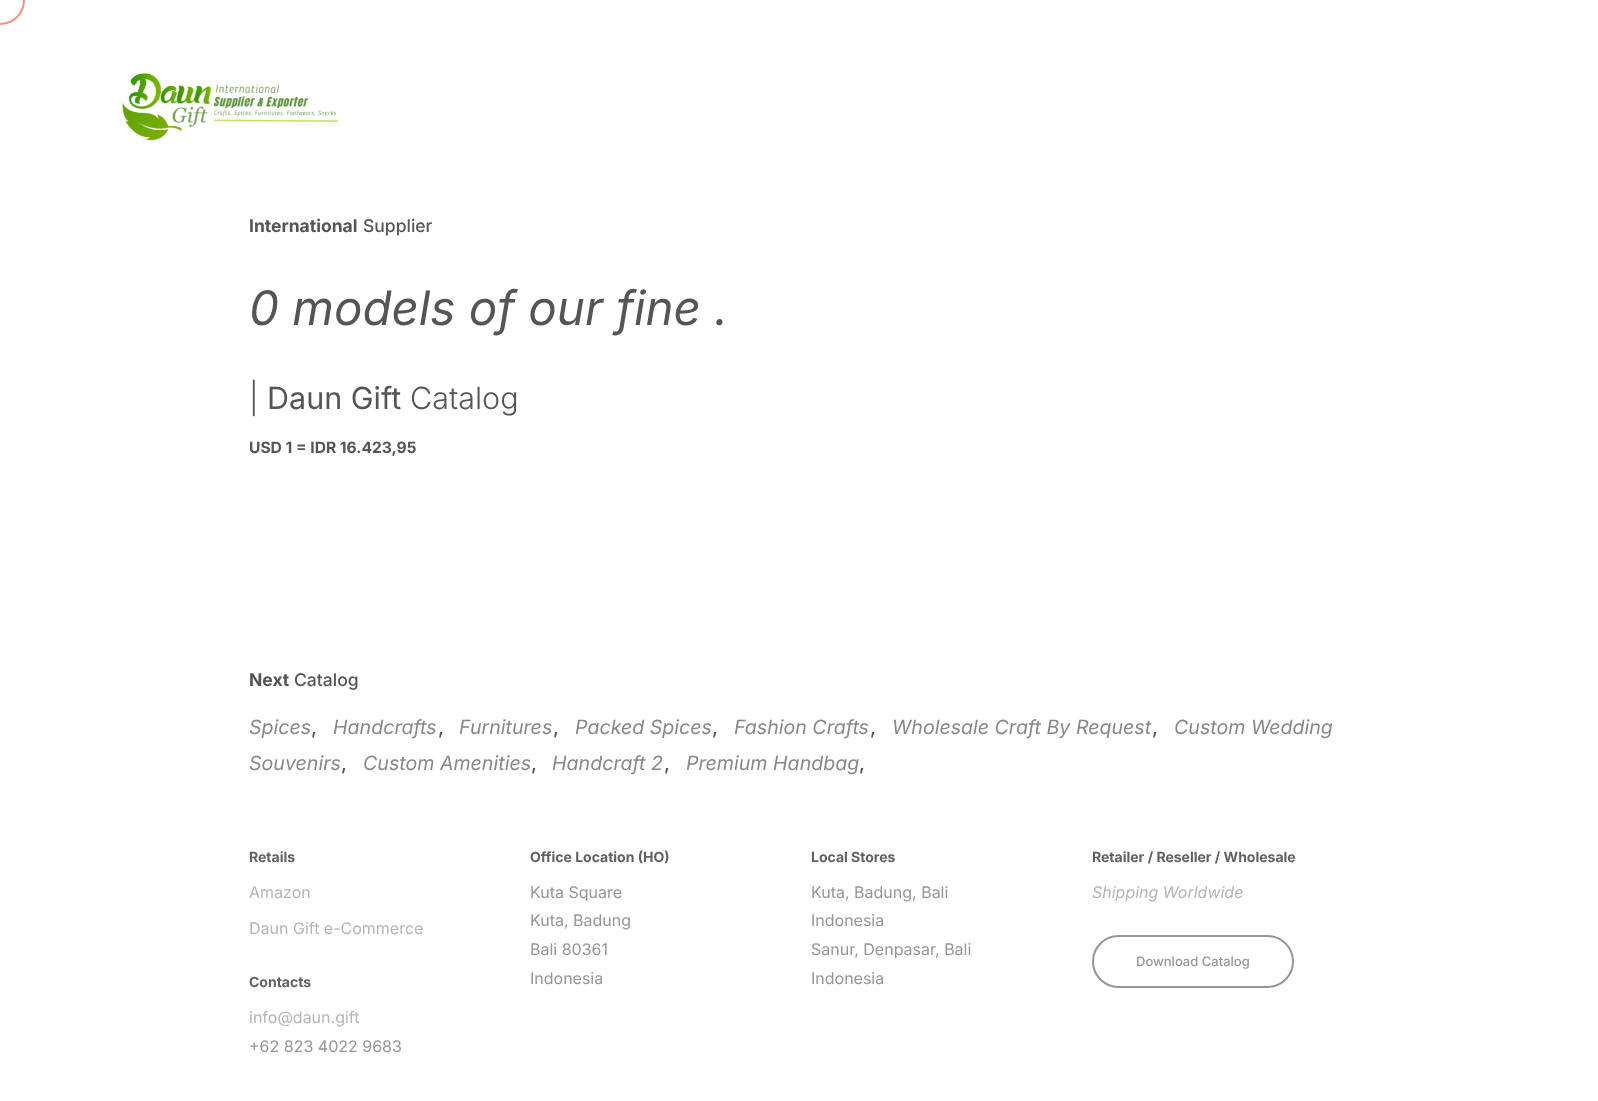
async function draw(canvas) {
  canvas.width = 1598;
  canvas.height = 1101;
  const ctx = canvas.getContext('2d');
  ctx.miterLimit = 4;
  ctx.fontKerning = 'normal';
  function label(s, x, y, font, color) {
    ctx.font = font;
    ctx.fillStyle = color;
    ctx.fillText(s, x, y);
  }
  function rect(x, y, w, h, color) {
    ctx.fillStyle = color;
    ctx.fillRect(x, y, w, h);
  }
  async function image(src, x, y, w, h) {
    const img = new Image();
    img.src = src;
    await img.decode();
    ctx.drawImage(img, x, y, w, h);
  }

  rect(0, 0, 1598, 1101, '#fff');
  ctx.beginPath();
  ctx.arc(0, 0, 24, 0, 2 * Math.PI);
  ctx.strokeStyle = '#f49183';
  ctx.lineWidth = 2;
  ctx.stroke();
  await image('assets/img1.png', 122, 73, 216, 68);
  label('International', 249, 232, 'bold 17.5px Inter', '#555');
  label('Supplier', 363, 232, '500 17.5px Inter', '#555');
  label('0 models of our fine .', 249, 325, 'italic 47.5px Inter', '#555');
  label('|', 249, 409, '300 30.5px Inter', '#555');
  label('Daun Gift', 267, 409, '30.5px Inter', '#555');
  label('Catalog', 410, 409, '300 30.5px Inter', '#555');
  label('USD 1 = IDR 16.423,95', 249, 453, 'bold 15.6px Inter', '#555');
  label('Next', 249, 686, 'bold 17.5px Inter', '#555');
  label('Catalog', 294, 686, '500 17.5px Inter', '#555');
  label('Spices', 249, 734, 'italic 19.6px Inter', '#888');
  label(',', 311, 734, '500 19.6px Inter', '#555');
  label('Handcrafts', 333, 734, 'italic 19.6px Inter', '#888');
  label(',', 438, 734, '500 19.6px Inter', '#555');
  label('Furnitures', 459, 734, 'italic 19.6px Inter', '#888');
  label(',', 553, 734, '500 19.6px Inter', '#555');
  label('Packed Spices', 575, 734, 'italic 19.6px Inter', '#888');
  label(',', 712, 734, '500 19.6px Inter', '#555');
  label('Fashion Crafts', 734, 734, 'italic 19.6px Inter', '#888');
  label(',', 870, 734, '500 19.6px Inter', '#555');
  label('Wholesale Craft By Request', 892, 734, 'italic 19.6px Inter', '#888');
  label(',', 1152, 734, '500 19.6px Inter', '#555');
  label('Custom Wedding', 1174, 734, 'italic 19.6px Inter', '#888');
  label('Souvenirs', 249, 770, 'italic 19.6px Inter', '#888');
  label(',', 341, 770, '500 19.6px Inter', '#555');
  label('Custom Amenities', 363, 770, 'italic 19.6px Inter', '#888');
  label(',', 531, 770, '500 19.6px Inter', '#555');
  label('Handcraft 2', 552, 770, 'italic 19.6px Inter', '#888');
  label(',', 664, 770, '500 19.6px Inter', '#555');
  label('Premium Handbag', 686, 770, 'italic 19.6px Inter', '#888');
  label(',', 859, 770, '500 19.6px Inter', '#555');
  label('Retails', 249, 862, 'bold 14px Inter', '#616161');
  label('Amazon', 249, 898, '16px Inter', '#b5b5b5');
  label('Daun Gift e-Commerce', 249, 934, '16px Inter', '#b5b5b5');
  label('Contacts', 249, 987, 'bold 14px Inter', '#616161');
  label('info@daun.gift', 249, 1023, '16px Inter', '#b5b5b5');
  label('+62 823 4022 9683', 249, 1052, '16px Inter', '#969696');
  label('Office Location (HO)', 530, 862, 'bold 14px Inter', '#616161');
  label('Kuta Square', 530, 898, '16px Inter', '#969696');
  label('Kuta, Badung', 530, 926, '16px Inter', '#969696');
  label('Bali 80361', 530, 955, '16px Inter', '#969696');
  label('Indonesia', 530, 984, '16px Inter', '#969696');
  label('Local Stores', 811, 862, 'bold 14px Inter', '#616161');
  label('Kuta, Badung, Bali', 811, 898, '16px Inter', '#969696');
  label('Indonesia', 811, 926, '16px Inter', '#969696');
  label('Sanur, Denpasar, Bali', 811, 955, '16px Inter', '#969696');
  label('Indonesia', 811, 984, '16px Inter', '#969696');
  label('Retailer / Reseller / Wholesale', 1092, 862, 'bold 14px Inter', '#616161');
  label('Shipping Worldwide', 1092, 898, 'italic 16px Inter', '#b5b5b5');
  ctx.beginPath();
  ctx.roundRect(1093, 936, 200, 51, 25.5);
  ctx.strokeStyle = '#969696';
  ctx.stroke();
  label('Download Catalog', 1136, 966, '500 13px Inter', '#969696');
}

draw(document.querySelector('canvas'));
